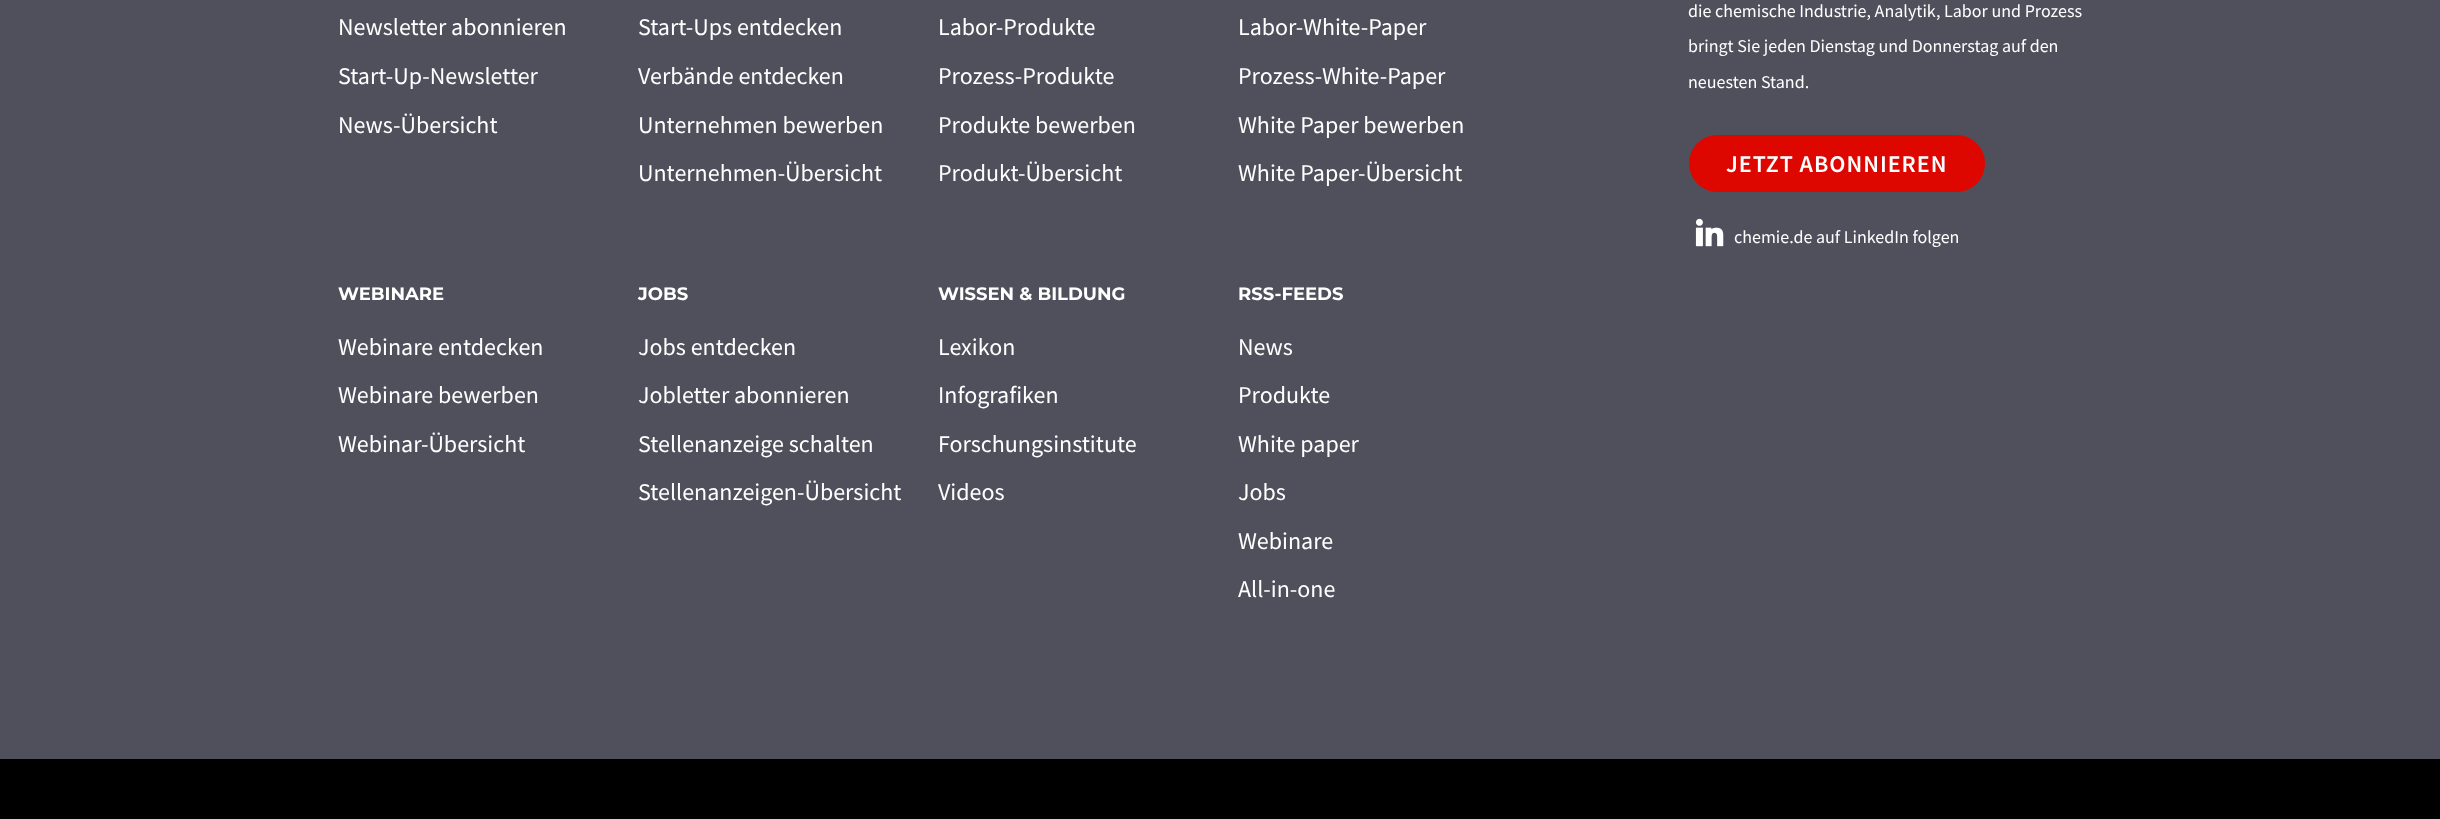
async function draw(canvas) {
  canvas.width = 2440;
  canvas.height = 819;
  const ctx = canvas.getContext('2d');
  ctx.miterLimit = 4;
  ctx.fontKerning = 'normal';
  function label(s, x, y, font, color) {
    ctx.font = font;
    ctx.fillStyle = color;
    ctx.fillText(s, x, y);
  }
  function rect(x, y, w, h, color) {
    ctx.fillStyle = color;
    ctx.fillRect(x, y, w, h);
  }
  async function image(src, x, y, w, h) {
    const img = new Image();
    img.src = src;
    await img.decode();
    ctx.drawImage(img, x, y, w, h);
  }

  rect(0, 0, 2440, 819, '#50505d');
  label('Newsletter abonnieren', 338, 35, '24px Source Sans Pro', '#fff');
  label('Start-Up-Newsletter', 338, 84, '24px Source Sans Pro', '#fff');
  label('News-Übersicht', 338, 133, '24px Source Sans Pro', '#fff');
  label('Start-Ups entdecken', 638, 35, '24px Source Sans Pro', '#fff');
  label('Verbände entdecken', 638, 84, '24px Source Sans Pro', '#fff');
  label('Unternehmen bewerben', 638, 133, '24px Source Sans Pro', '#fff');
  label('Unternehmen-Übersicht', 638, 181, '24px Source Sans Pro', '#fff');
  label('Labor-Produkte', 938, 35, '24px Source Sans Pro', '#fff');
  label('Prozess-Produkte', 938, 84, '24px Source Sans Pro', '#fff');
  label('Produkte bewerben', 938, 133, '24px Source Sans Pro', '#fff');
  label('Produkt-Übersicht', 938, 181, '24px Source Sans Pro', '#fff');
  label('Labor-White-Paper', 1238, 35, '24px Source Sans Pro', '#fff');
  label('Prozess-White-Paper', 1238, 84, '24px Source Sans Pro', '#fff');
  label('White Paper bewerben', 1238, 133, '24px Source Sans Pro', '#fff');
  label('White Paper-Übersicht', 1238, 181, '24px Source Sans Pro', '#fff');
  label('WEBINARE', 338, 300, '100 18px Montserrat', '#fff');
  label('Webinare entdecken', 338, 355, '24px Source Sans Pro', '#fff');
  label('Webinare bewerben', 338, 403, '24px Source Sans Pro', '#fff');
  label('Webinar-Übersicht', 338, 452, '24px Source Sans Pro', '#fff');
  label('JOBS', 638, 300, '100 18px Montserrat', '#fff');
  label('Jobs entdecken', 638, 355, '24px Source Sans Pro', '#fff');
  label('Jobletter abonnieren', 638, 403, '24px Source Sans Pro', '#fff');
  label('Stellenanzeige schalten', 638, 452, '24px Source Sans Pro', '#fff');
  label('Stellenanzeigen-Übersicht', 638, 500, '24px Source Sans Pro', '#fff');
  label('WISSEN & BILDUNG', 938, 300, '100 18px Montserrat', '#fff');
  label('Lexikon', 938, 355, '24px Source Sans Pro', '#fff');
  label('Infografiken', 938, 403, '24px Source Sans Pro', '#fff');
  label('Forschungsinstitute', 938, 452, '24px Source Sans Pro', '#fff');
  label('Videos', 938, 500, '24px Source Sans Pro', '#fff');
  label('RSS-FEEDS', 1238, 300, '100 18px Montserrat', '#fff');
  label('News', 1238, 355, '24px Source Sans Pro', '#fff');
  label('Produkte', 1238, 403, '24px Source Sans Pro', '#fff');
  label('White paper', 1238, 452, '24px Source Sans Pro', '#fff');
  label('Jobs', 1238, 500, '24px Source Sans Pro', '#fff');
  label('Webinare', 1238, 549, '24px Source Sans Pro', '#fff');
  label('All-in-one', 1238, 597, '24px Source Sans Pro', '#fff');
  label('die chemische Industrie, Analytik, Labor und Prozess', 1688, 17, '18px Source Sans Pro', '#fff');
  label('bringt Sie jeden Dienstag und Donnerstag auf den', 1688, 52, '18px Source Sans Pro', '#fff');
  label('neuesten Stand.', 1688, 88, '18px Source Sans Pro', '#fff');
  ctx.fillStyle = '#dd0700';
  ctx.beginPath();
  ctx.roundRect(1690, 136, 294, 55, 27.5);
  ctx.fill();
  ctx.strokeStyle = '#dd0700';
  ctx.lineWidth = 2;
  ctx.stroke();
  ctx.letterSpacing = '1px';
  label('JETZT ABONNIEREN', 1726, 172, '600 24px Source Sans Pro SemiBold', '#fff');
  await image('assets/img1.png', 1695, 218, 29, 29);
  ctx.letterSpacing = '0px';
  label('chemie.de auf LinkedIn folgen', 1734, 243, '18px Source Sans Pro', '#fff');
  rect(0, 759, 2440, 60, '#000');
}

draw(document.querySelector('canvas'));
